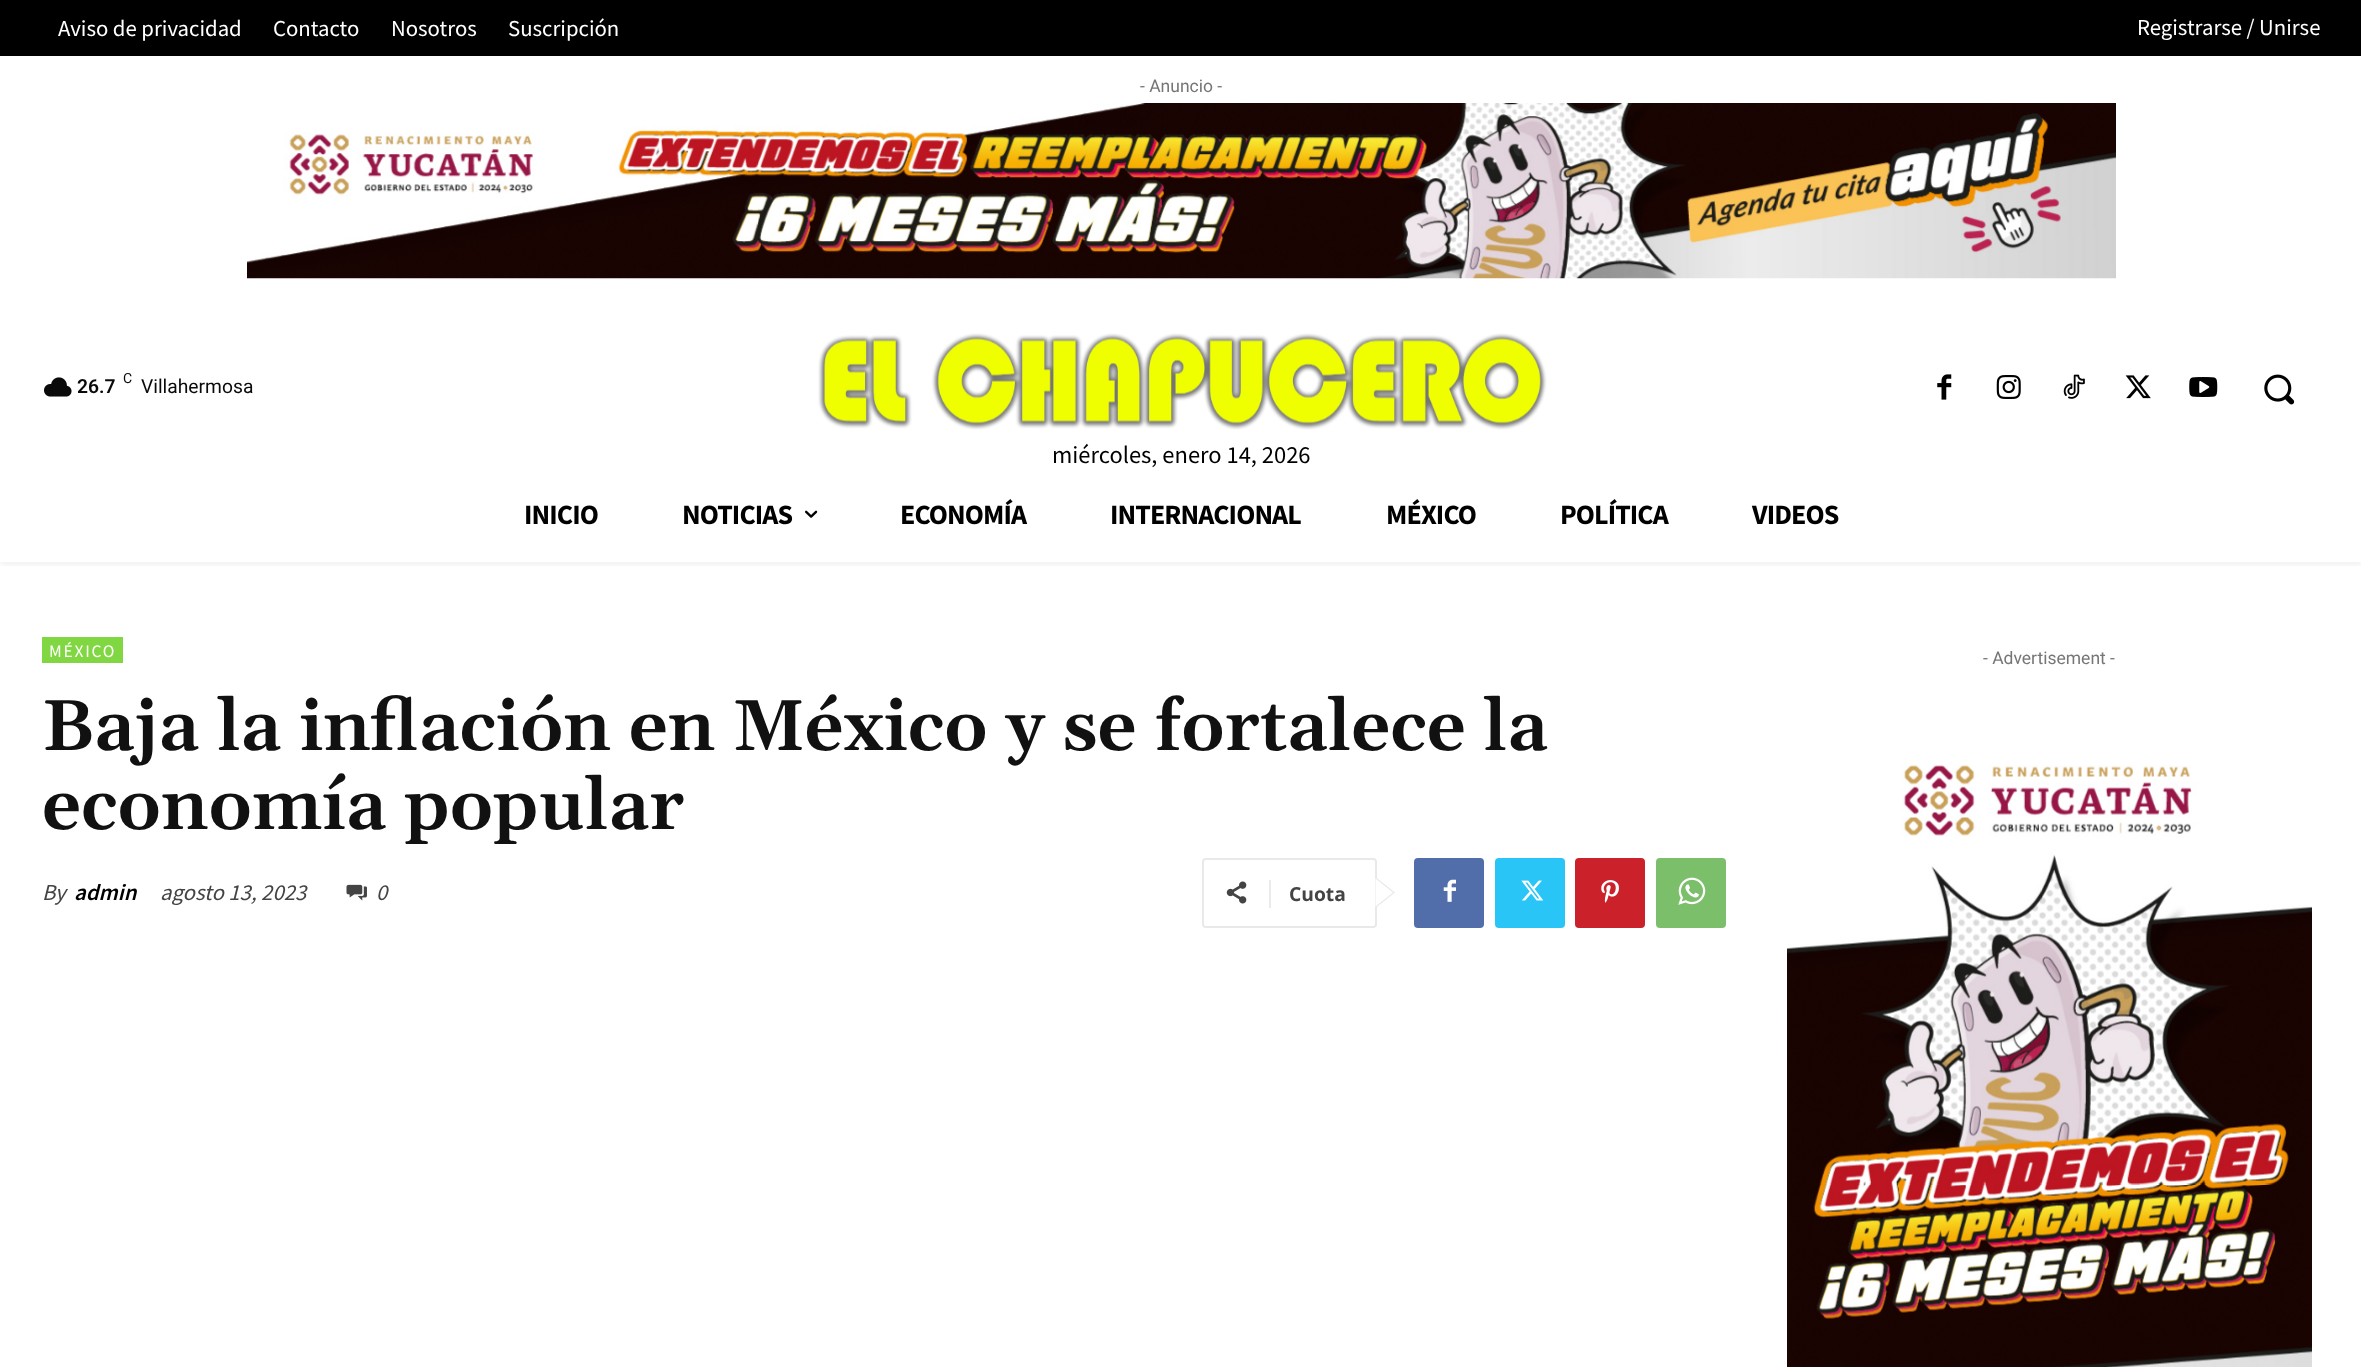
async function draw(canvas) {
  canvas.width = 2361;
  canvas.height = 1367;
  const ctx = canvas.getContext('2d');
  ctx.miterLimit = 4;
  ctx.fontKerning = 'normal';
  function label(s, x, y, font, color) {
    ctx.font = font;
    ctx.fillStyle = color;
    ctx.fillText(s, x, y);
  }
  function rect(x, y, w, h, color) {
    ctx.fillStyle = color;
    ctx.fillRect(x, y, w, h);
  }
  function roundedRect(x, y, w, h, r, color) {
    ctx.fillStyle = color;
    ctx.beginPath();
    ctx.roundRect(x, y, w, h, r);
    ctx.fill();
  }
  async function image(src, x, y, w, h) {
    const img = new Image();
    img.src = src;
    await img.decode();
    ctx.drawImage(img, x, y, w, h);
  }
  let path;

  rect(0, 0, 2361, 1367, '#fff');
  rect(0, 0, 2361, 56, '#000');
  label('Aviso de privacidad', 58, 36, '22.75px Source Sans Pro', '#fff');
  label('Contacto', 273, 36, '22.75px Source Sans Pro', '#fff');
  label('Nosotros', 391, 36, '22.75px Source Sans Pro', '#fff');
  label('Suscripción', 508, 36, '22.75px Source Sans Pro', '#fff');
  label('Registrarse / Unirse', 2137, 35, '22.75px Source Sans Pro', '#fff');
  label('- Anuncio -', 1140, 92, '17.5px Roboto', '#767676');
  await image('assets/img1.png', 247, 103, 1869, 176);
  await image('assets/img2.png', 44, 377, 28, 20);
  label('26.7', 77, 393, '600 19.25px Roboto', '#0a0a0a');
  label('C', 123, 383, '14px Roboto', '#0a0a0a');
  label('Villahermosa', 141, 393, '19.25px Roboto', '#0a0a0a');
  await image('assets/img3.png', 818, 333, 729, 97);
  await image('assets/img4.png', 1937, 374, 15, 26);
  await image('assets/img5.png', 1996, 375, 25, 24);
  await image('assets/img6.png', 2063, 374, 22, 25);
  await image('assets/img7.png', 2125, 375, 26, 24);
  await image('assets/img8.png', 2189, 377, 29, 20);
  await image('assets/img9.png', 2264, 374, 31, 31);
  label('miércoles, enero 14, 2026', 1052, 463, '24.5px Source Sans Pro', '#000');
  ctx.save();
  ctx.beginPath();
  ctx.rect(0, 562, 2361, 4);
  ctx.clip();
  ctx.fillStyle = '#0000000f';
  ctx.filter = 'blur(3.5px)';
  ctx.beginPath();
  ctx.rect(0, 469, 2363, 96);
  ctx.fill();
  ctx.filter = 'none';
  ctx.restore();
  ctx.letterSpacing = '-0.9px';
  label('INICIO', 524, 524, 'bold 28px Source Sans Pro', '#000');
  label('NOTICIAS', 682, 524, 'bold 28px Source Sans Pro', '#000');
  await image('assets/img10.png', 805, 510, 13, 8);
  label('ECONOMÍA', 900, 524, 'bold 28px Source Sans Pro', '#000');
  label('INTERNACIONAL', 1110, 524, 'bold 28px Source Sans Pro', '#000');
  label('MÉXICO', 1386, 524, 'bold 28px Source Sans Pro', '#000');
  label('POLÍTICA', 1560, 524, 'bold 28px Source Sans Pro', '#000');
  label('VIDEOS', 1752, 524, 'bold 28px Source Sans Pro', '#000');
  rect(42, 637, 81, 26, '#81d742');
  ctx.letterSpacing = '1.75px';
  label('MÉXICO', 49, 657, '17.5px Source Sans Pro', '#fff');
  ctx.letterSpacing = '0px';
  label('Baja la inflación en México y se fortalece la', 42, 750, '600 71.75px Gelasio', '#111');
  label('economía popular', 42, 829, '600 71.75px Gelasio', '#111');
  label('By', 42, 900, 'italic 22.75px Source Sans Pro', '#444');
  label('admin', 74, 900, 'italic 600 22.75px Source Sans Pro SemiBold', '#000');
  label('agosto 13, 2023', 160, 900, 'italic 22.75px Source Sans Pro', '#444');
  await image('assets/img11.png', 346, 884, 21, 17);
  label('0', 376, 900, 'italic 22.75px Source Sans Pro', '#444');
  ctx.beginPath();
  ctx.roundRect(1203, 859, 173, 68, 3);
  ctx.strokeStyle = '#e9e9e9';
  ctx.lineWidth = 2;
  ctx.stroke();
  ctx.fillStyle = '#e9e9e9';
  path = new Path2D('M1375.5 908V877L1395 892.5Z');
  ctx.fill(path);
  await image('assets/img12.png', 1226, 881, 21, 23);
  rect(1269, 880, 2, 28, '#ebebeb');
  label('Cuota', 1289, 901, 'bold 19.25px Open Sans', '#444');
  ctx.fillStyle = '#fff';
  path = new Path2D('M1375.5 906.5V878.5L1393 892.5Z');
  ctx.fill(path);
  roundedRect(1414, 858, 70, 70, 4, '#516eab');
  await image('assets/img13.png', 1443, 879, 13, 23);
  roundedRect(1495, 858, 70, 70, 4, '#29c5f6');
  await image('assets/img14.png', 1521, 880, 23, 21);
  roundedRect(1575, 858, 70, 70, 4, '#ca212a');
  await image('assets/img15.png', 1601, 880, 18, 23);
  roundedRect(1656, 858, 70, 70, 4, '#7bbf6a');
  await image('assets/img16.png', 1678, 877, 28, 28);
  label('- Advertisement -', 1983, 664, '17.5px Roboto', '#767676');
  await image('assets/img17.png', 1787, 765, 525, 602);
}

draw(document.querySelector('canvas'));
